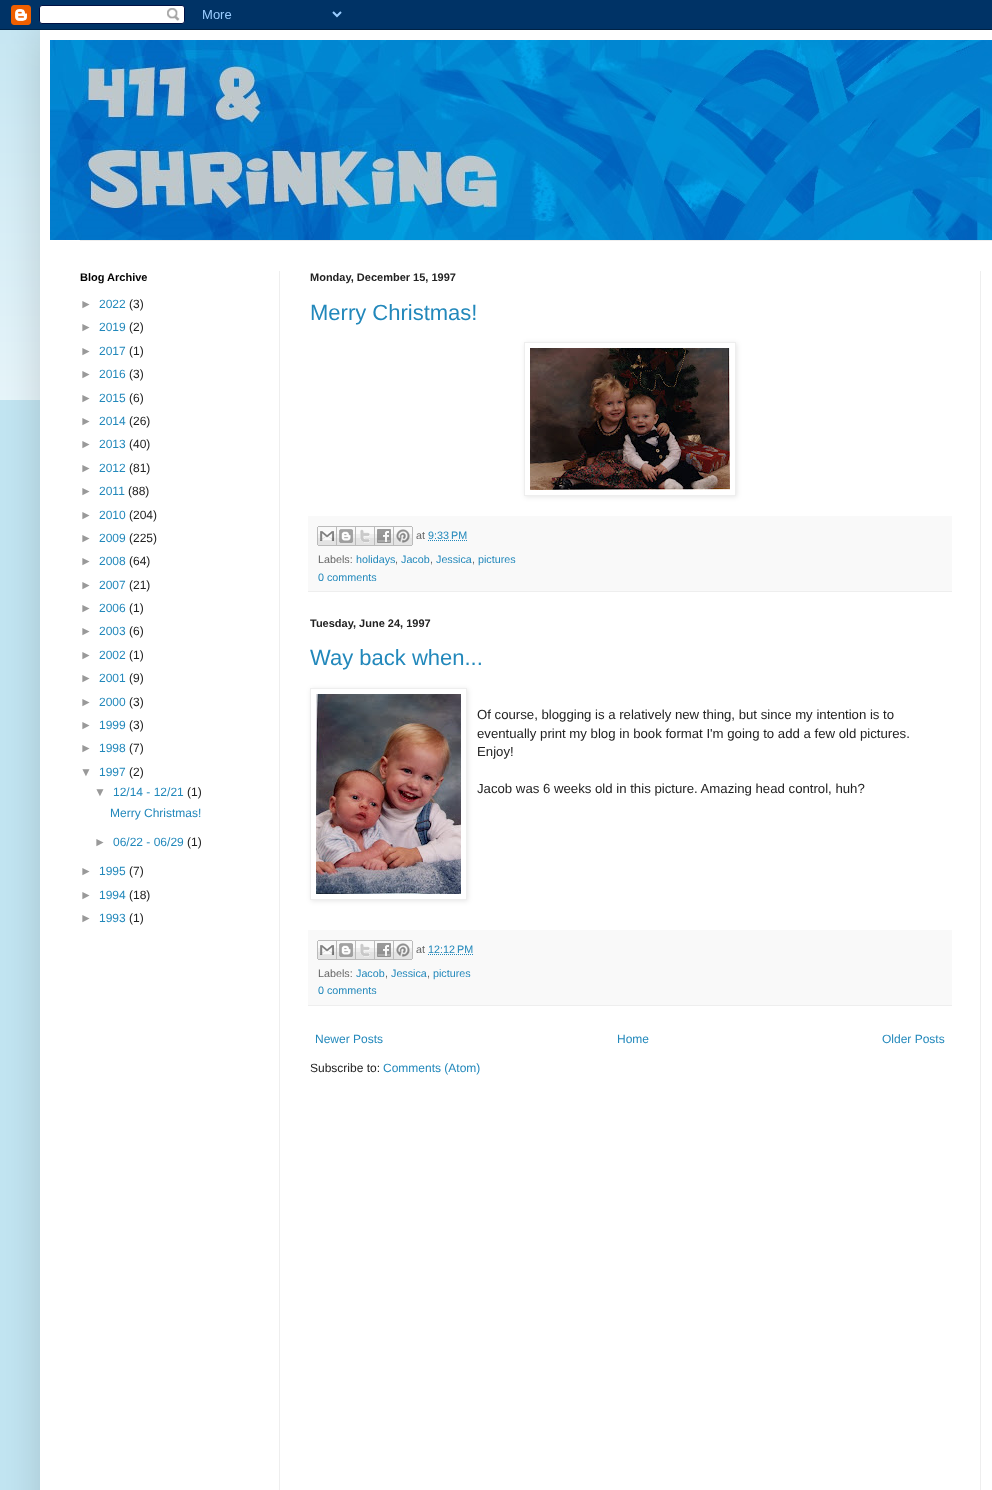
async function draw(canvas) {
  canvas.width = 992;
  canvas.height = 1490;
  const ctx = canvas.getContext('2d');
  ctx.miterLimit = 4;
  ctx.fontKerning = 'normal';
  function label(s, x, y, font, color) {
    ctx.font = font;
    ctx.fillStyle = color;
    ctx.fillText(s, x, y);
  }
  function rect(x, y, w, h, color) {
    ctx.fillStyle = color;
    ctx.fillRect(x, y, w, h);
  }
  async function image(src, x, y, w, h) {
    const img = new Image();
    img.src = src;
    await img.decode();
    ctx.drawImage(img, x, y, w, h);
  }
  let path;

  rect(0, 0, 992, 1490, '#c2e5f2');
  await image('assets/img2.png', 0, 30, 40, 370);
  ctx.fillStyle = '#00000026';
  ctx.filter = 'blur(20px)';
  ctx.beginPath();
  ctx.rect(40, 30, 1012, 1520);
  ctx.fill();
  ctx.filter = 'none';
  await image('assets/img1.png', 0, 0, 992, 30);
  rect(40, 30, 952, 1460, '#fff');
  await image('assets/img3.png', 50, 40, 942, 200);
  rect(80, 240, 912, 1, '#eee');
  rect(279, 271, 1, 1219, '#eee');
  rect(980, 271, 1, 1219, '#eee');
  label('Blog Archive', 80, 281, 'bold 11px Liberation Sans', '#000');
  label('►', 80, 308, '12px Liberation Sans', '#999');
  label('2022', 99, 308, '12px Liberation Sans', '#28b');
  label('(3)', 129, 308, '12px Liberation Sans', '#222');
  label('►', 80, 331, '12px Liberation Sans', '#999');
  label('2019', 99, 331, '12px Liberation Sans', '#28b');
  label('(2)', 129, 331, '12px Liberation Sans', '#222');
  label('►', 80, 355, '12px Liberation Sans', '#999');
  label('2017', 99, 355, '12px Liberation Sans', '#28b');
  label('(1)', 129, 355, '12px Liberation Sans', '#222');
  label('►', 80, 378, '12px Liberation Sans', '#999');
  label('2016', 99, 378, '12px Liberation Sans', '#28b');
  label('(3)', 129, 378, '12px Liberation Sans', '#222');
  label('►', 80, 402, '12px Liberation Sans', '#999');
  label('2015', 99, 402, '12px Liberation Sans', '#28b');
  label('(6)', 129, 402, '12px Liberation Sans', '#222');
  label('►', 80, 425, '12px Liberation Sans', '#999');
  label('2014', 99, 425, '12px Liberation Sans', '#28b');
  label('(26)', 129, 425, '12px Liberation Sans', '#222');
  label('►', 80, 448, '12px Liberation Sans', '#999');
  label('2013', 99, 448, '12px Liberation Sans', '#28b');
  label('(40)', 129, 448, '12px Liberation Sans', '#222');
  label('►', 80, 472, '12px Liberation Sans', '#999');
  label('2012', 99, 472, '12px Liberation Sans', '#28b');
  label('(81)', 129, 472, '12px Liberation Sans', '#222');
  label('►', 80, 495, '12px Liberation Sans', '#999');
  label('2011', 99, 495, '12px Liberation Sans', '#28b');
  label('(88)', 128, 495, '12px Liberation Sans', '#222');
  label('►', 80, 519, '12px Liberation Sans', '#999');
  label('2010', 99, 519, '12px Liberation Sans', '#28b');
  label('(204)', 129, 519, '12px Liberation Sans', '#222');
  label('►', 80, 542, '12px Liberation Sans', '#999');
  label('2009', 99, 542, '12px Liberation Sans', '#28b');
  label('(225)', 129, 542, '12px Liberation Sans', '#222');
  label('►', 80, 565, '12px Liberation Sans', '#999');
  label('2008', 99, 565, '12px Liberation Sans', '#28b');
  label('(64)', 129, 565, '12px Liberation Sans', '#222');
  label('►', 80, 589, '12px Liberation Sans', '#999');
  label('2007', 99, 589, '12px Liberation Sans', '#28b');
  label('(21)', 129, 589, '12px Liberation Sans', '#222');
  label('►', 80, 612, '12px Liberation Sans', '#999');
  label('2006', 99, 612, '12px Liberation Sans', '#28b');
  label('(1)', 129, 612, '12px Liberation Sans', '#222');
  label('►', 80, 635, '12px Liberation Sans', '#999');
  label('2003', 99, 635, '12px Liberation Sans', '#28b');
  label('(6)', 129, 635, '12px Liberation Sans', '#222');
  label('►', 80, 659, '12px Liberation Sans', '#999');
  label('2002', 99, 659, '12px Liberation Sans', '#28b');
  label('(1)', 129, 659, '12px Liberation Sans', '#222');
  label('►', 80, 682, '12px Liberation Sans', '#999');
  label('2001', 99, 682, '12px Liberation Sans', '#28b');
  label('(9)', 129, 682, '12px Liberation Sans', '#222');
  label('►', 80, 706, '12px Liberation Sans', '#999');
  label('2000', 99, 706, '12px Liberation Sans', '#28b');
  label('(3)', 129, 706, '12px Liberation Sans', '#222');
  label('►', 80, 729, '12px Liberation Sans', '#999');
  label('1999', 99, 729, '12px Liberation Sans', '#28b');
  label('(3)', 129, 729, '12px Liberation Sans', '#222');
  label('►', 80, 752, '12px Liberation Sans', '#999');
  label('1998', 99, 752, '12px Liberation Sans', '#28b');
  label('(7)', 129, 752, '12px Liberation Sans', '#222');
  label('▼', 80, 776, '12px Liberation Sans', '#999');
  label('1997', 99, 776, '12px Liberation Sans', '#28b');
  label('(2)', 129, 776, '12px Liberation Sans', '#222');
  label('▼', 94, 796, '12px Liberation Sans', '#999');
  label('12/14 - 12/21', 113, 796, '12px Liberation Sans', '#28b');
  label('(1)', 187, 796, '12px Liberation Sans', '#222');
  label('Merry Christmas!', 110, 817, '12px Liberation Sans', '#28b');
  label('►', 94, 846, '12px Liberation Sans', '#999');
  label('06/22 - 06/29', 113, 846, '12px Liberation Sans', '#28b');
  label('(1)', 187, 846, '12px Liberation Sans', '#222');
  label('►', 80, 875, '12px Liberation Sans', '#999');
  label('1995', 99, 875, '12px Liberation Sans', '#28b');
  label('(7)', 129, 875, '12px Liberation Sans', '#222');
  label('►', 80, 899, '12px Liberation Sans', '#999');
  label('1994', 99, 899, '12px Liberation Sans', '#28b');
  label('(18)', 129, 899, '12px Liberation Sans', '#222');
  label('►', 80, 922, '12px Liberation Sans', '#999');
  label('1993', 99, 922, '12px Liberation Sans', '#28b');
  label('(1)', 129, 922, '12px Liberation Sans', '#222');
  label('Monday, December 15, 1997', 310, 281, 'bold 11px Liberation Sans', '#222');
  label('Merry Christmas!', 310, 320, '22px Liberation Sans', '#28b');
  ctx.save();
  path = new Path2D('M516 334H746V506H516ZM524 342H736V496H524Z');
  ctx.clip(path, 'evenodd');
  ctx.fillStyle = '#0000001a';
  ctx.filter = 'blur(2.5px)';
  ctx.beginPath();
  ctx.rect(525, 343, 212, 154);
  ctx.fill();
  ctx.filter = 'none';
  ctx.restore();
  ctx.strokeStyle = '#eee';
  ctx.strokeRect(524.5, 342.5, 211, 153);
  await image('assets/img4.png', 530, 348, 200, 142);
  rect(308, 516, 644, 75, '#f9f9f9');
  rect(308, 591, 644, 1, '#eee');
  await image('assets/img5.png', 317, 526, 20, 20);
  await image('assets/img6.png', 337, 526, 19, 20);
  await image('assets/img7.png', 356, 526, 19, 20);
  await image('assets/img8.png', 375, 526, 19, 20);
  await image('assets/img9.png', 394, 526, 19, 20);
  label('at', 416, 539, '10.75px Liberation Sans', '#666');
  label('9:33 PM', 428, 539, '10.75px Liberation Sans', '#28b');
  path = new Path2D('M428 540.5H467.5');
  ctx.strokeStyle = '#28b';
  ctx.setLineDash([1, 1]);
  ctx.stroke(path);
  label('Labels:', 318, 563, '10.75px Liberation Sans', '#666');
  label('holidays', 356, 563, '10.75px Liberation Sans', '#28b');
  label(',', 395, 563, '10.75px Liberation Sans', '#666');
  label('Jacob', 401, 563, '10.75px Liberation Sans', '#28b');
  label(',', 430, 563, '10.75px Liberation Sans', '#666');
  label('Jessica', 436, 563, '10.75px Liberation Sans', '#28b');
  label(',', 472, 563, '10.75px Liberation Sans', '#666');
  label('pictures', 478, 563, '10.75px Liberation Sans', '#28b');
  label('0 comments', 318, 581, '10.75px Liberation Sans', '#28b');
  label('Tuesday, June 24, 1997', 310, 627, 'bold 11px Liberation Sans', '#222');
  label('Way back when...', 310, 665, '22px Liberation Sans', '#28b');
  ctx.save();
  path = new Path2D('M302 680H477V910H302ZM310 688H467V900H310Z');
  ctx.clip(path, 'evenodd');
  ctx.fillStyle = '#0000001a';
  ctx.filter = 'blur(2.5px)';
  ctx.beginPath();
  ctx.rect(311, 689, 157, 212);
  ctx.fill();
  ctx.filter = 'none';
  ctx.restore();
  ctx.strokeStyle = '#eee';
  ctx.setLineDash([]);
  ctx.strokeRect(310.5, 688.5, 156, 211);
  await image('assets/img10.png', 316, 694, 145, 200);
  label('Of course, blogging is a relatively new thing, but since my intention is to', 477, 719, '13.2px Liberation Sans', '#222');
  label('eventually print my blog in book format I\'m going to add a few old pictures.', 477, 738, '13.2px Liberation Sans', '#222');
  label('Enjoy!', 477, 756, '13.2px Liberation Sans', '#222');
  label('Jacob was 6 weeks old in this picture. Amazing head control, huh?', 477, 793, '13.2px Liberation Sans', '#222');
  rect(308, 930, 644, 75, '#f9f9f9');
  rect(308, 1005, 644, 1, '#eee');
  await image('assets/img5.png', 317, 940, 20, 20);
  await image('assets/img6.png', 337, 940, 19, 20);
  await image('assets/img7.png', 356, 940, 19, 20);
  await image('assets/img8.png', 375, 940, 19, 20);
  await image('assets/img9.png', 394, 940, 19, 20);
  label('at', 416, 953, '10.75px Liberation Sans', '#666');
  label('12:12 PM', 428, 953, '10.75px Liberation Sans', '#28b');
  path = new Path2D('M428 954.5H473.5');
  ctx.strokeStyle = '#28b';
  ctx.setLineDash([1, 1]);
  ctx.stroke(path);
  label('Labels:', 318, 977, '10.75px Liberation Sans', '#666');
  label('Jacob', 356, 977, '10.75px Liberation Sans', '#28b');
  label(',', 385, 977, '10.75px Liberation Sans', '#666');
  label('Jessica', 391, 977, '10.75px Liberation Sans', '#28b');
  label(',', 427, 977, '10.75px Liberation Sans', '#666');
  label('pictures', 433, 977, '10.75px Liberation Sans', '#28b');
  label('0 comments', 318, 994, '10.75px Liberation Sans', '#28b');
  label('Newer Posts', 315, 1043, '12px Liberation Sans', '#28b');
  label('Home', 617, 1043, '12px Liberation Sans', '#28b');
  label('Older Posts', 882, 1043, '12px Liberation Sans', '#28b');
  label('Subscribe to:', 310, 1072, '12px Liberation Sans', '#222');
  label('Comments (Atom)', 383, 1072, '12px Liberation Sans', '#28b');
}

draw(document.querySelector('canvas'));
